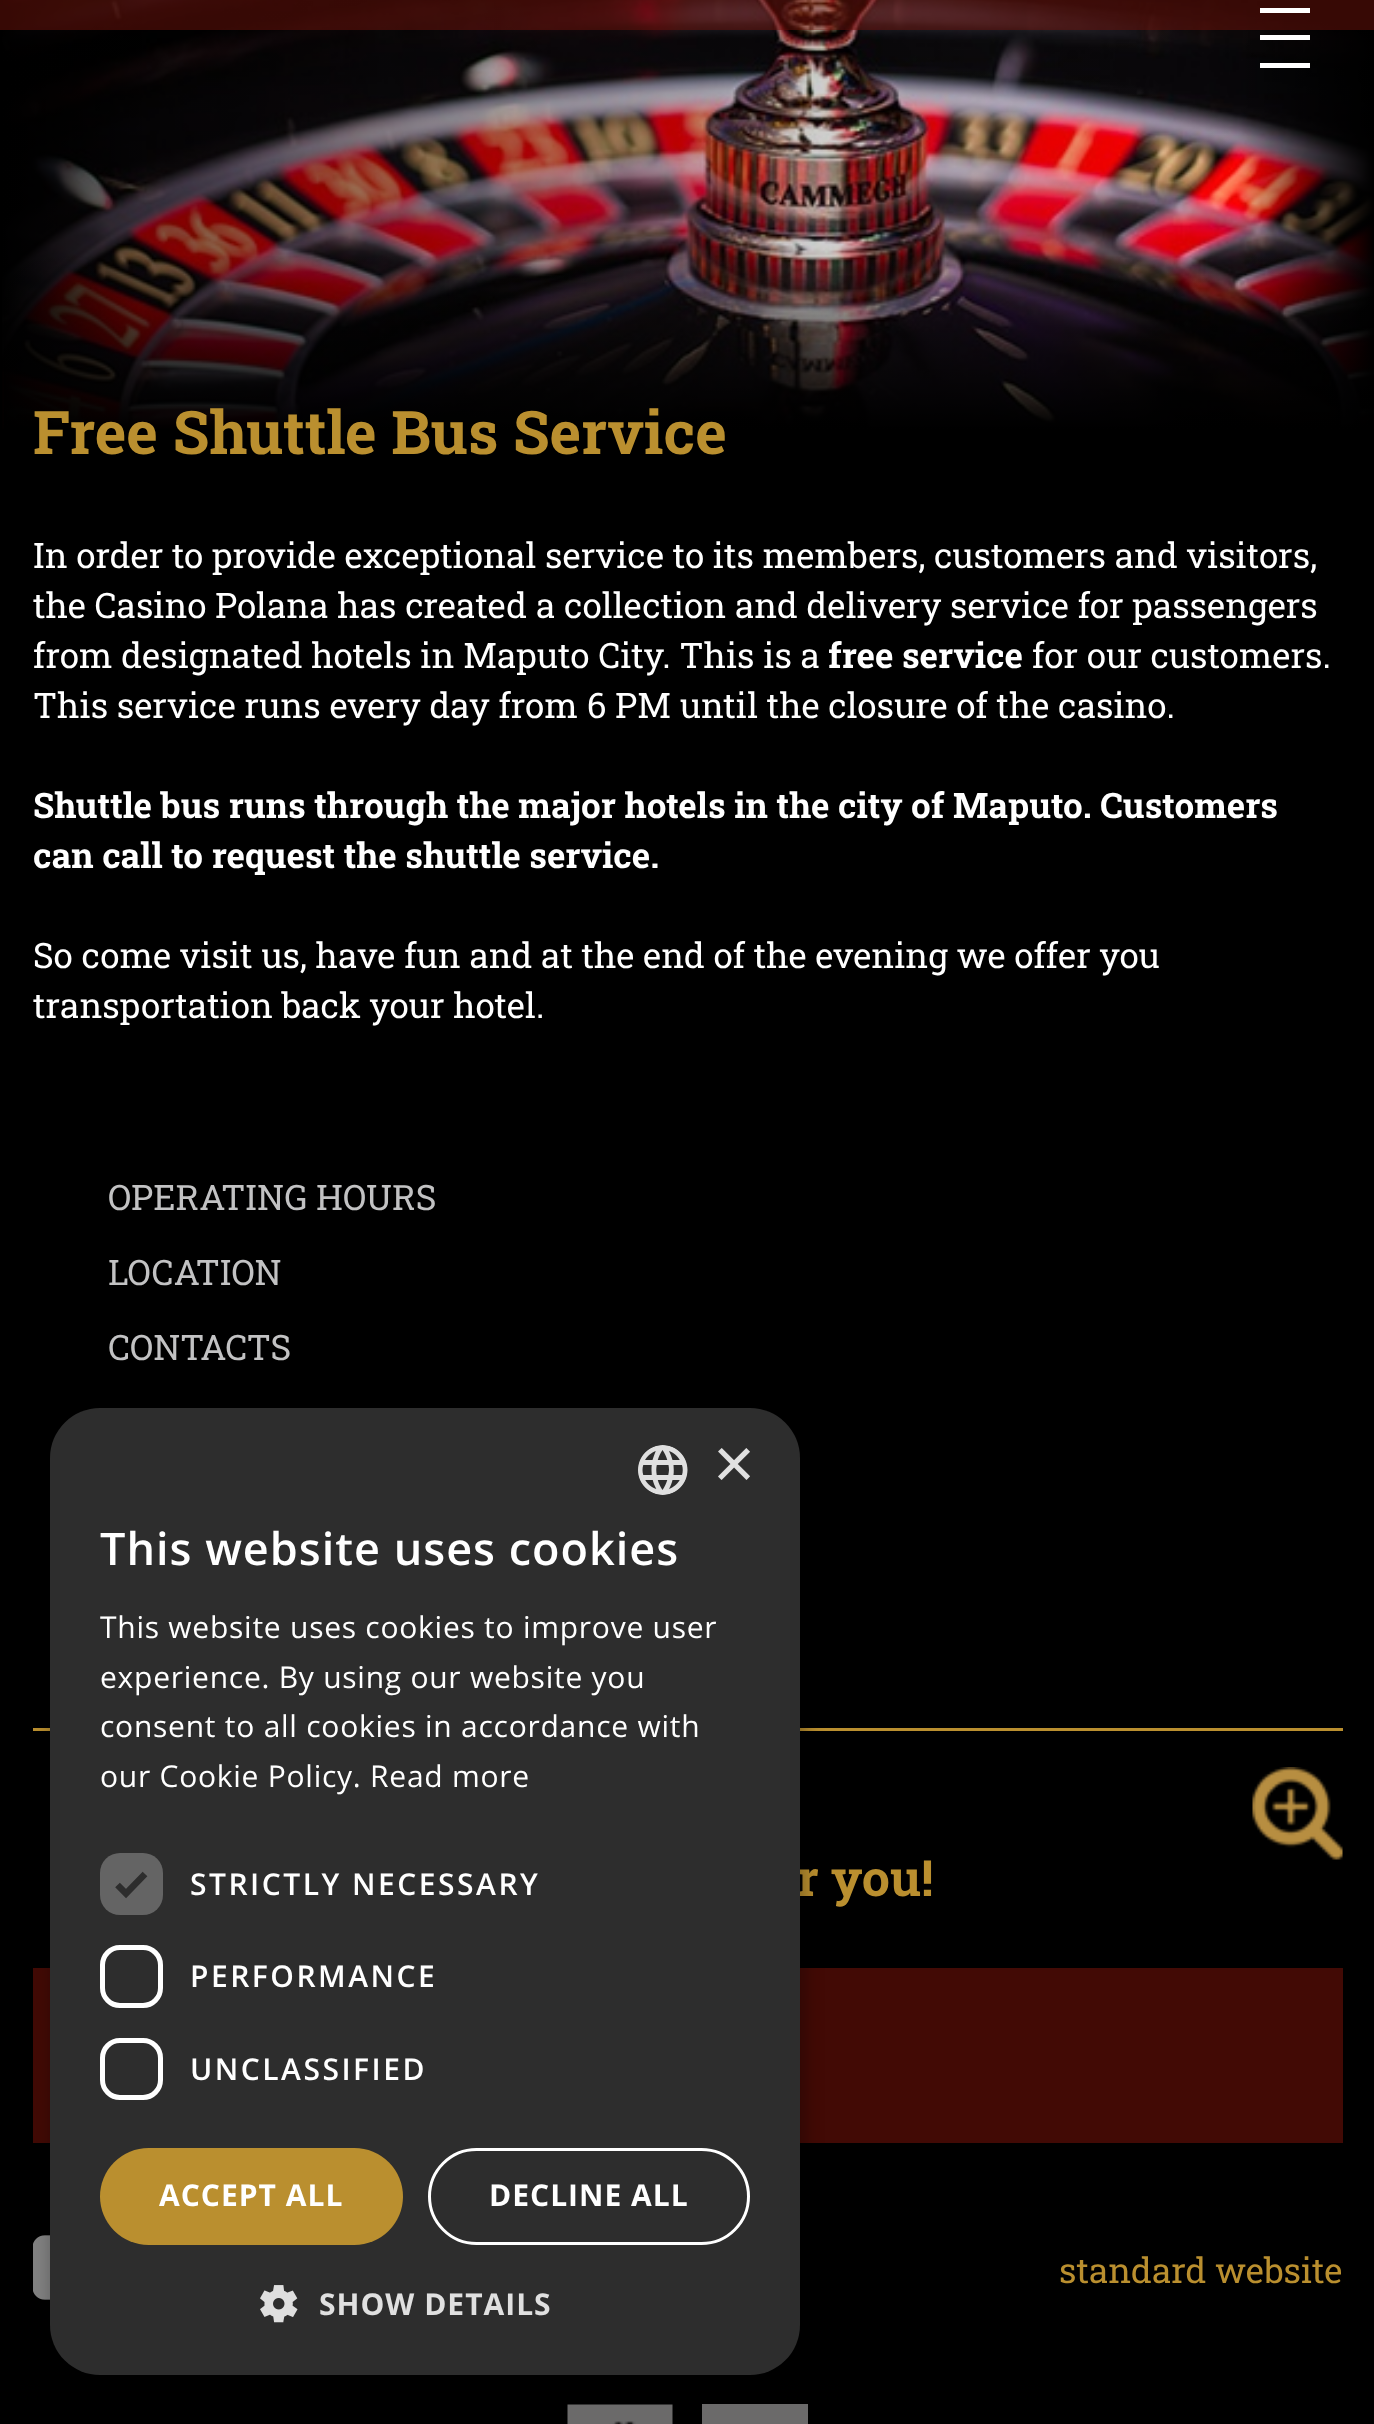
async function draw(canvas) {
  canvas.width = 1374;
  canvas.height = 2424;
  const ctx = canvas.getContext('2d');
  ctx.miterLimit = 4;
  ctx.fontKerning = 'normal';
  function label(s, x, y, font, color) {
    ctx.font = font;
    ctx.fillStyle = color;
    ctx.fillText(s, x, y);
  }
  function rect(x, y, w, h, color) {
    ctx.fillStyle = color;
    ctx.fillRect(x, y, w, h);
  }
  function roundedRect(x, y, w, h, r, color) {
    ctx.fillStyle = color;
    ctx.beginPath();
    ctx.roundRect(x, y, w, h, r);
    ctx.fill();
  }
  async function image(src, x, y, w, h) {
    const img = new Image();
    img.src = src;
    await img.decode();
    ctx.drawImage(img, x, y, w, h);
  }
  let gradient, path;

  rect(0, 0, 1374, 2424, '#000');
  await image('assets/img1.png', 2, 0, 1372, 429);
  gradient = ctx.createLinearGradient(0, 134, 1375, 134);
  gradient.addColorStop(0, '#000');
  gradient.addColorStop(0.1, '#00000080');
  gradient.addColorStop(0.9, '#00000000');
  gradient.addColorStop(1, '#000');
  ctx.fillStyle = gradient;
  ctx.fillRect(2, 0, 1372, 429);
  rect(0, 0, 1374, 30, '#6e110980');
  rect(1260, 8, 50, 5, '#fff');
  rect(1260, 63, 50, 5, '#fff');
  rect(1260, 35, 50, 5, '#fff');
  gradient = ctx.createLinearGradient(688, -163, 688, 430);
  gradient.addColorStop(0.7, '#00000000');
  gradient.addColorStop(1, '#000');
  ctx.fillStyle = gradient;
  ctx.fillRect(4, 256, 1369, 173);
  label('Free Shuttle Bus Service', 33, 454, 'bold 60px Roboto Slab', '#ba8f2f');
  label('In order to provide exceptional service to its members, customers and visitors,', 33, 568, '35px Roboto Slab', '#fff');
  label('the Casino Polana has created a collection and delivery service for passengers', 33, 618, '35px Roboto Slab', '#fff');
  label('from designated hotels in Maputo City. This is a', 33, 668, '35px Roboto Slab', '#fff');
  label('free service', 828, 668, 'bold 35px Roboto Slab', '#fff');
  label('for our customers.', 1032, 668, '35px Roboto Slab', '#fff');
  label('This service runs every day from 6 PM until the closure of the casino.', 33, 718, '35px Roboto Slab', '#fff');
  label('Shuttle bus runs through the major hotels in the city of Maputo. Customers', 33, 818, 'bold 35px Roboto Slab', '#fff');
  label('can call to request the shuttle service.', 33, 868, 'bold 35px Roboto Slab', '#fff');
  label('So come visit us, have fun and at the end of the evening we offer you', 33, 968, '35px Roboto Slab', '#fff');
  label('transportation back your hotel.', 33, 1018, '35px Roboto Slab', '#fff');
  label('OPERATING HOURS', 108, 1210, '35px Roboto Slab', '#c2c2c3');
  label('LOCATION', 108, 1285, '35px Roboto Slab', '#c2c2c3');
  label('CONTACTS', 108, 1360, '35px Roboto Slab', '#c2c2c3');
  rect(33, 1728, 1310, 3, '#ba8f2f');
  await image('assets/img2.png', 1252, 1767, 91, 93);
  label('r you!', 797, 1896, 'bold 50px Roboto Slab', '#ba8f2f');
  rect(33, 1968, 1310, 175, '#420a05');
  await image('assets/img3.png', 33, 2235, 17, 65);
  label('standard website', 1059, 2283, '35px Roboto Slab', '#ba8f2f');
  await image('assets/img4.png', 567, 2404, 106, 20);
  rect(702, 2404, 106, 20, '#6b6a6a');
  ctx.fillStyle = '#00000059';
  ctx.filter = 'blur(10px)';
  ctx.beginPath();
  ctx.roundRect(53, 1413, 750, 967, 50);
  ctx.fill();
  ctx.filter = 'none';
  roundedRect(50, 1408, 750, 967, 50, '#2d2d2d');
  await image('assets/img5.png', 638, 1445, 50, 50);
  label('×', 713, 1488, '72px Liberation Sans', '#e0e0e0');
  ctx.letterSpacing = '1px';
  label('This website uses cookies', 100, 1565, '600 45px Open Sans', '#fff');
  ctx.letterSpacing = '0.75px';
  label('This website uses cookies to improve user', 100, 1638, '30px Open Sans', '#fff');
  label('experience. By using our website you', 100, 1688, '30px Open Sans', '#fff');
  label('consent to all cookies in accordance with', 100, 1737, '30px Open Sans', '#fff');
  label('our Cookie Policy. Read more', 100, 1787, '30px Open Sans', '#fff');
  roundedRect(100, 1853, 63, 62, 20, '#646464');
  path = new Path2D('M117.5 1885L126 1893.5L145 1874');
  ctx.strokeStyle = '#2d2d2d';
  ctx.lineWidth = 6.6;
  ctx.stroke(path);
  ctx.letterSpacing = '2.5px';
  label('STRICTLY NECESSARY', 190, 1895, '600 30px Open Sans', '#fff');
  ctx.beginPath();
  ctx.roundRect(102.5, 1947.5, 58, 58, 17.5);
  ctx.strokeStyle = '#fff';
  ctx.lineWidth = 5;
  ctx.stroke();
  label('PERFORMANCE', 190, 1987, '600 30px Open Sans', '#fff');
  ctx.beginPath();
  ctx.roundRect(102.5, 2040.5, 58, 57, 17.5);
  ctx.stroke();
  label('UNCLASSIFIED', 190, 2080, '600 30px Open Sans', '#fff');
  roundedRect(100, 2148, 303, 97, 48.5, '#ba8f2f');
  ctx.letterSpacing = '1px';
  label('ACCEPT ALL', 159, 2206, 'bold 30px Open Sans', '#fff');
  ctx.beginPath();
  ctx.roundRect(429.5, 2149.5, 319, 94, 47);
  ctx.lineWidth = 3;
  ctx.stroke();
  label('DECLINE ALL', 489, 2206, 'bold 30px Open Sans', '#fff');
  await image('assets/img6.png', 260, 2285, 38, 38);
  label('SHOW DETAILS', 319, 2315, 'bold 30px Open Sans', '#e0e0e0');
}

draw(document.querySelector('canvas'));
